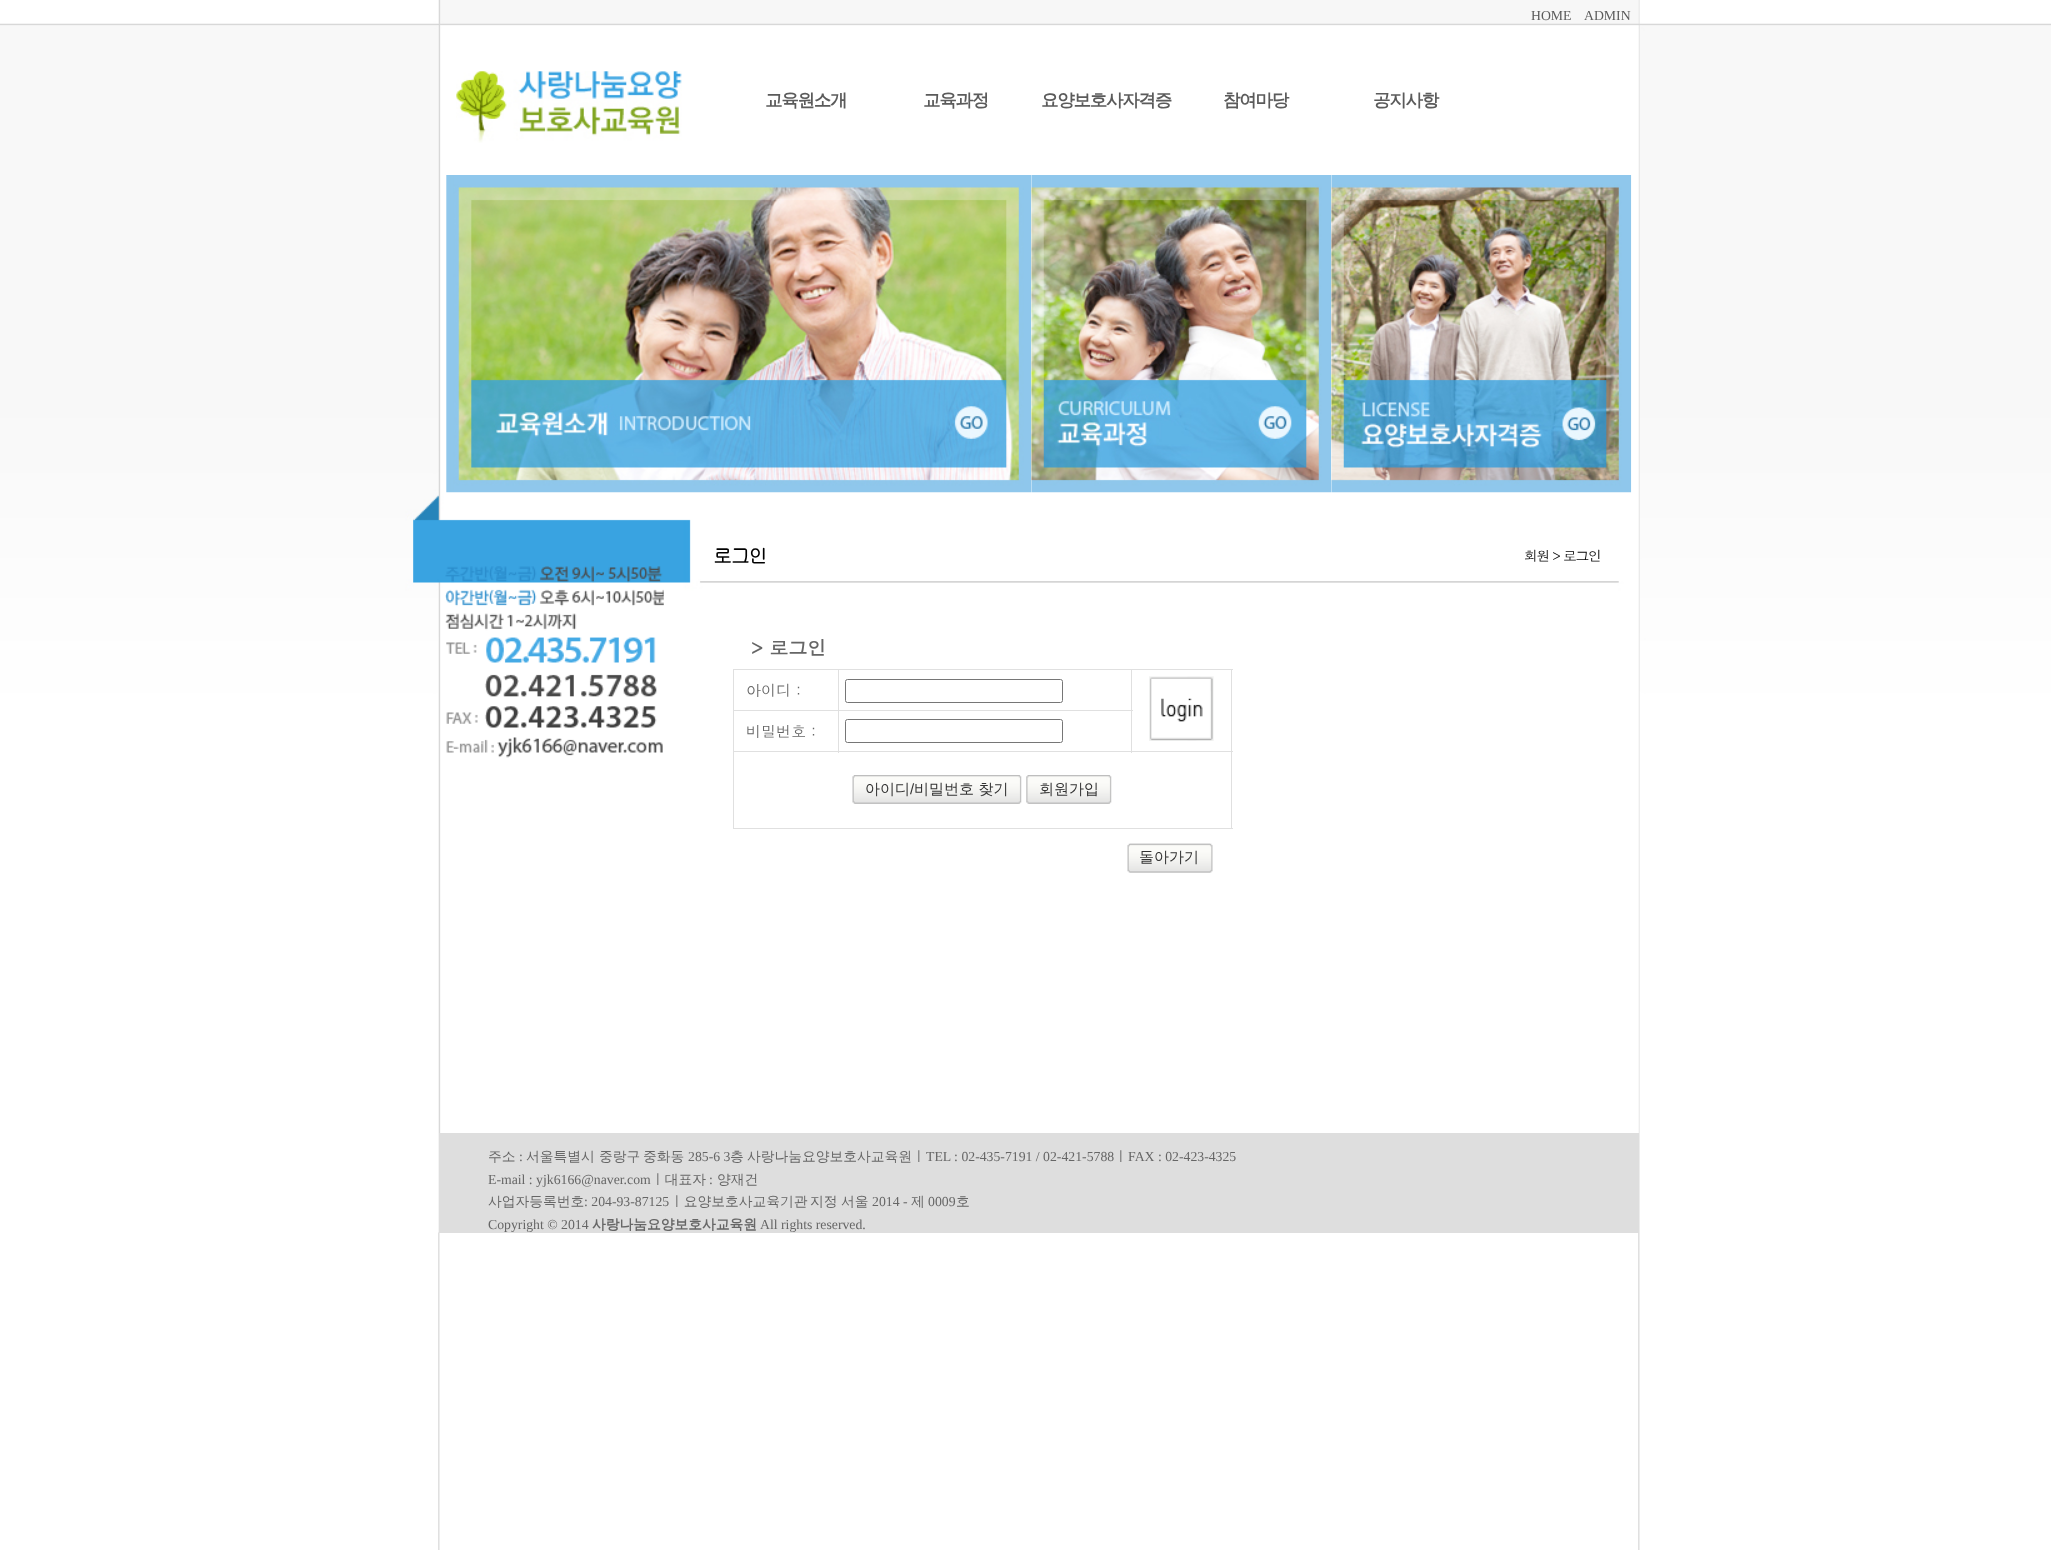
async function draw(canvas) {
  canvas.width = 2051;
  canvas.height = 1550;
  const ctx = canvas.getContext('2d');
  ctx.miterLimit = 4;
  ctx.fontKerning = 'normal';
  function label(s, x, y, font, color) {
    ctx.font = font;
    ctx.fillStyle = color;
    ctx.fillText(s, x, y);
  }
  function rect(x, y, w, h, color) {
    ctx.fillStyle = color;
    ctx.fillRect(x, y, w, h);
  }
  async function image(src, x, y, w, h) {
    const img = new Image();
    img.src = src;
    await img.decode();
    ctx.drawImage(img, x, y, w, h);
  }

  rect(0, 0, 2051, 1550, '#fff');
  await image('assets/img1.png', 0, 0, 2051, 1550);
  await image('assets/img2.png', 413, 0, 1226, 1233);
  label('HOME', 1531, 20, '13.75px Liberation Serif', '#5b5b5b');
  label('ADMIN', 1584, 20, '13.75px Liberation Serif', '#5b5b5b');
  await image('assets/img3.png', 456, 71, 226, 72);
  ctx.letterSpacing = '-1.25px';
  label('교육원소개', 765, 106, 'bold 17.5px WenQuanYi Zen Hei', '#5b5b5b');
  label('교육과정', 923, 106, 'bold 17.5px WenQuanYi Zen Hei', '#5b5b5b');
  label('요양보호사자격증', 1041, 106, 'bold 17.5px WenQuanYi Zen Hei', '#5b5b5b');
  label('참여마당', 1223, 106, 'bold 17.5px WenQuanYi Zen Hei', '#5b5b5b');
  label('공지사항', 1373, 106, 'bold 17.5px WenQuanYi Zen Hei', '#5b5b5b');
  await image('assets/img4.png', 446, 175, 586, 318);
  await image('assets/img5.png', 1031, 175, 301, 318);
  await image('assets/img6.png', 1331, 175, 301, 318);
  label('로그인', 713, 563, 'bold 19px Gulim', '#000');
  label('회원 > 로그인', 1524, 561, '13.75px Dotum', '#000');
  await image('assets/img7.png', 445, 566, 219, 192);
  ctx.letterSpacing = '0px';
  label('> 로그인', 751, 655, 'bold 19px Dotum', '#666');
  rect(733, 669, 500, 1, '#e0e0e0');
  rect(1231, 669, 1, 160, '#e0e0e0');
  rect(733, 828, 500, 1, '#e0e0e0');
  rect(733, 669, 1, 160, '#e0e0e0');
  label('아이디 :', 746, 696, '15px Dotum', '#666');
  rect(838, 710, 295, 1, '#e0e0e0');
  rect(733, 751, 500, 1, '#e0e0e0');
  rect(838, 710, 1, 43, '#e0e0e0');
  rect(733, 710, 106, 1, '#e0e0e0');
  rect(838, 669, 1, 42, '#e0e0e0');
  ctx.beginPath();
  ctx.roundRect(845.5, 679.5, 217, 23, 2);
  ctx.strokeStyle = '#767676';
  ctx.stroke();
  rect(1131, 669, 1, 84, '#e0e0e0');
  await image('assets/img8.png', 1149, 676, 65, 65);
  label('비밀번호 :', 746, 737, '15px Dotum', '#666');
  ctx.beginPath();
  ctx.roundRect(845.5, 719.5, 217, 23, 2);
  ctx.stroke();
  await image('assets/img9.png', 852, 775, 167, 29);
  await image('assets/img10.png', 855, 775, 167, 29);
  label('아이디', 865, 794, '500 15px WenQuanYi Zen Hei', '#333');
  label('/', 910, 794, '15px Liberation Sans', '#333');
  label('비밀번호 찾기', 914, 794, '500 15px WenQuanYi Zen Hei', '#333');
  await image('assets/img11.png', 1026, 775, 83, 29);
  await image('assets/img12.png', 1028, 775, 84, 29);
  label('회원가입', 1039, 794, '500 15px WenQuanYi Zen Hei', '#333');
  await image('assets/img13.png', 1127, 843, 83, 30);
  await image('assets/img14.png', 1130, 843, 83, 30);
  label('돌아가기', 1139, 862, '500 15px WenQuanYi Zen Hei', '#333');
  rect(439, 1133, 1200, 100, '#dedede');
  label('주소', 488, 1161, '500 13.75px WenQuanYi Zen Hei', '#666');
  label(':', 519, 1161, '13.75px Liberation Serif', '#666');
  label('서울특별시', 526, 1161, '500 13.75px WenQuanYi Zen Hei', '#666');
  label('중랑구', 599, 1161, '500 13.75px WenQuanYi Zen Hei', '#666');
  label('중화동', 643, 1161, '500 13.75px WenQuanYi Zen Hei', '#666');
  label('285-6 3', 688, 1161, '13.75px Liberation Serif', '#666');
  label('층', 730, 1161, '500 13.75px WenQuanYi Zen Hei', '#666');
  label('사랑나눔요양보호사교육원ㅣ', 747, 1161, '500 13.75px WenQuanYi Zen Hei', '#666');
  label('TEL : 02-435-7191 / 02-421-5788', 926, 1161, '13.75px Liberation Serif', '#666');
  label('ㅣ', 1114, 1161, '500 13.75px WenQuanYi Zen Hei', '#666');
  label('FAX : 02-423-4325', 1128, 1161, '13.75px Liberation Serif', '#666');
  label('E-mail : yjk6166@naver.com', 488, 1184, '13.75px Liberation Serif', '#666');
  label('ㅣ대표자', 651, 1184, '500 13.75px WenQuanYi Zen Hei', '#666');
  label(':', 709, 1184, '13.75px Liberation Serif', '#666');
  label('양재건', 717, 1184, '500 13.75px WenQuanYi Zen Hei', '#666');
  label('사업자등록번호', 488, 1206, '500 13.75px WenQuanYi Zen Hei', '#666');
  label(': 204-93-87125', 584, 1206, '13.75px Liberation Serif', '#666');
  label('ㅣ요양보호사교육기관', 670, 1206, '500 13.75px WenQuanYi Zen Hei', '#666');
  label('지정', 810, 1206, '500 13.75px WenQuanYi Zen Hei', '#666');
  label('서울', 841, 1206, '500 13.75px WenQuanYi Zen Hei', '#666');
  label('2014 -', 872, 1206, '13.75px Liberation Serif', '#666');
  label('제', 911, 1206, '500 13.75px WenQuanYi Zen Hei', '#666');
  label('0009', 928, 1206, '13.75px Liberation Serif', '#666');
  label('호', 956, 1206, '500 13.75px WenQuanYi Zen Hei', '#666');
  label('Copyright © 2014', 488, 1229, '13.75px Liberation Serif', '#666');
  label('사랑나눔요양보호사교육원', 592, 1229, 'bold 13.75px WenQuanYi Zen Hei', '#666');
  label('All rights reserved.', 760, 1229, '13.75px Liberation Serif', '#666');
}

draw(document.querySelector('canvas'));
